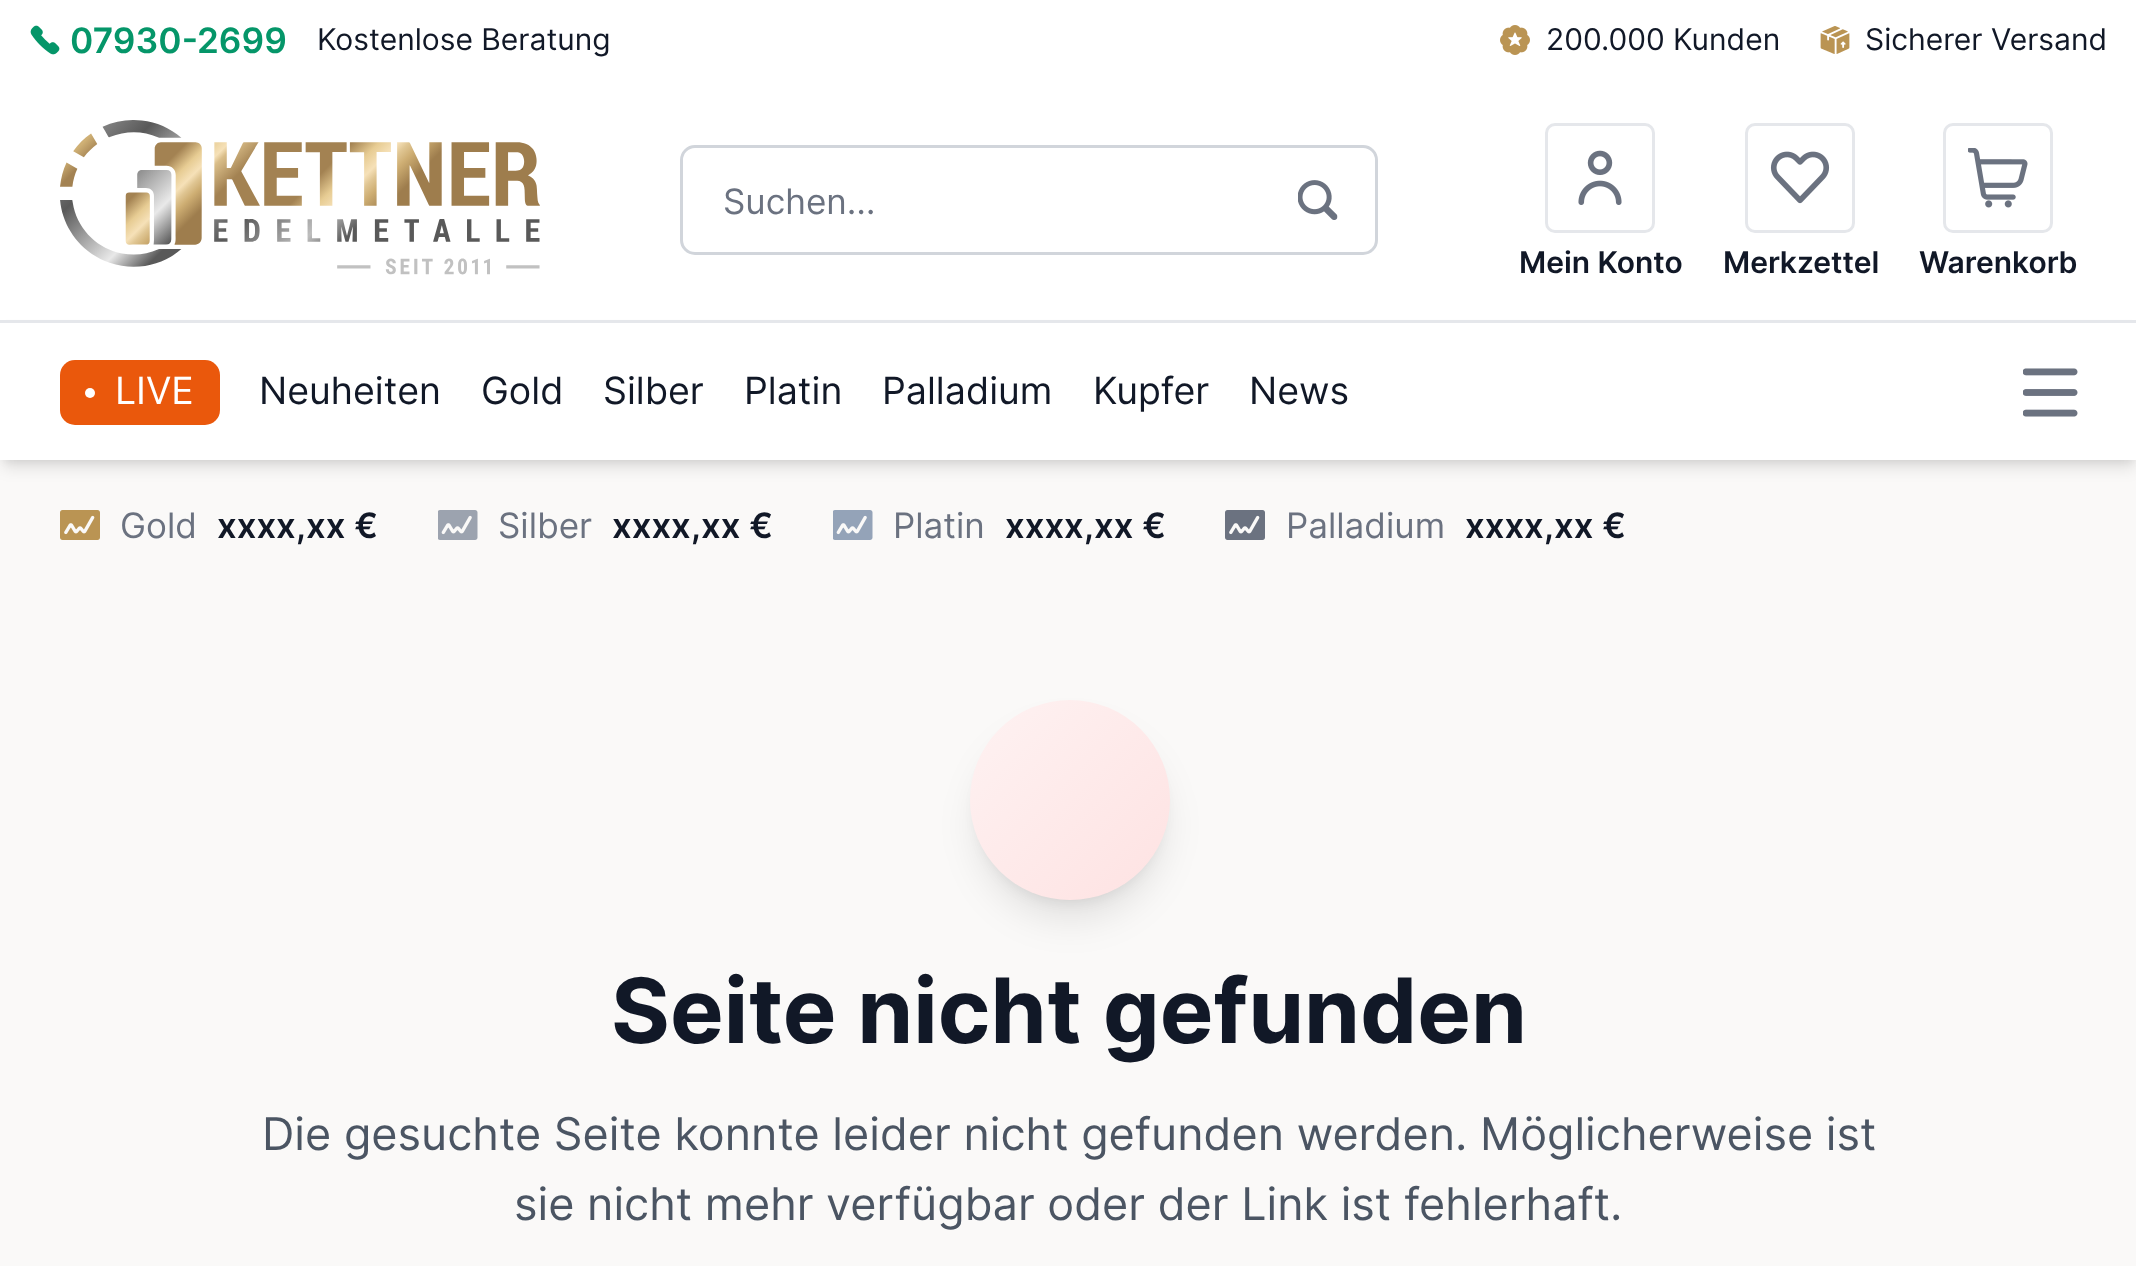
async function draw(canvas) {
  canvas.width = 2136;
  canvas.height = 1266;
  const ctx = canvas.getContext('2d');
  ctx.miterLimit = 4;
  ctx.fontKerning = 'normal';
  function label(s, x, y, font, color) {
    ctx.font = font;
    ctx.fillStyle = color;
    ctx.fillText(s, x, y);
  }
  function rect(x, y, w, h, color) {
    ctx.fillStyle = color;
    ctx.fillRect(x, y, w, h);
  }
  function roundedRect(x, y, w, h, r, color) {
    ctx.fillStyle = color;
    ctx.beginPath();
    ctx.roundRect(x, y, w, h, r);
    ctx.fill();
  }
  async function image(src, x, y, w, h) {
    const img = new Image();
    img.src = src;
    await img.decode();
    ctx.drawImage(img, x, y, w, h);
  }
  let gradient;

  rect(0, 0, 2136, 1266, '#faf9f8');
  rect(0, 0, 2136, 320, '#fff');
  await image('assets/img1.png', 30, 25, 30, 30);
  label('07930-2699', 70, 53, '600 35px Inter', '#059669');
  label('Kostenlose Beratung', 317, 50, '30px Inter', '#111827');
  await image('assets/img2.png', 1500, 25, 30, 30);
  label('200.000 Kunden', 1546, 50, '30px Inter', '#111827');
  await image('assets/img3.png', 1820, 26, 30, 28);
  label('Sicherer Versand', 1865, 50, '30px Inter', '#111827');
  await image('assets/img4.png', 60, 120, 480, 155);
  ctx.beginPath();
  ctx.roundRect(681.5, 146.5, 695, 107, 13.5);
  ctx.strokeStyle = '#d1d5db';
  ctx.lineWidth = 3;
  ctx.stroke();
  label('Suchen…', 723, 214, '35px Inter', '#6b7280');
  await image('assets/img5.png', 1298, 180, 40, 40);
  ctx.beginPath();
  ctx.roundRect(1546.5, 124.5, 107, 107, 8.5);
  ctx.strokeStyle = '#e5e7eb';
  ctx.stroke();
  await image('assets/img6.png', 1578, 150, 44, 55);
  label('Mein Konto', 1519, 273, '600 30px Inter', '#111827');
  ctx.beginPath();
  ctx.roundRect(1746.5, 124.5, 107, 107, 8.5);
  ctx.stroke();
  await image('assets/img7.png', 1770, 151, 60, 53);
  label('Merkzettel', 1723, 273, '600 30px Inter', '#111827');
  ctx.beginPath();
  ctx.roundRect(1944.5, 124.5, 107, 107, 8.5);
  ctx.stroke();
  await image('assets/img8.png', 1968, 148, 60, 60);
  label('Warenkorb', 1919, 273, '600 30px Inter', '#111827');
  ctx.fillStyle = '#0000001a';
  ctx.filter = 'blur(5px)';
  ctx.beginPath();
  ctx.rect(5, 330, 2128, 130);
  ctx.fill();
  ctx.filter = 'none';
  ctx.filter = 'blur(7.5px)';
  ctx.beginPath();
  ctx.rect(3, 333, 2132, 135);
  ctx.fill();
  ctx.filter = 'none';
  rect(0, 323, 2136, 137, '#fff');
  rect(0, 320, 2136, 3, '#e5e7eb');
  roundedRect(60, 360, 160, 65, 15, '#ea580c');
  ctx.fillStyle = '#fff';
  ctx.beginPath();
  ctx.arc(90, 393, 5, 0, 2 * Math.PI);
  ctx.fill();
  label('LIVE', 115, 404, '37.5px Inter', '#fff');
  label('Neuheiten', 259, 404, '37.5px Inter', '#111827');
  label('Gold', 481, 404, '37.5px Inter', '#111827');
  label('Silber', 603, 404, '37.5px Inter', '#111827');
  label('Platin', 744, 404, '37.5px Inter', '#111827');
  label('Palladium', 882, 404, '37.5px Inter', '#111827');
  label('Kupfer', 1093, 404, '37.5px Inter', '#111827');
  label('News', 1249, 404, '37.5px Inter', '#111827');
  await image('assets/img9.png', 2023, 368, 55, 49);
  await image('assets/img10.png', 60, 510, 40, 30);
  label('Gold', 120, 538, '35px Inter', '#6b7280');
  label('xxxx,xx €', 217, 538, '600 35px Inter', '#111827');
  await image('assets/img11.png', 438, 510, 40, 30);
  label('Silber', 498, 538, '35px Inter', '#6b7280');
  label('xxxx,xx €', 612, 538, '600 35px Inter', '#111827');
  await image('assets/img12.png', 833, 510, 40, 30);
  label('Platin', 893, 538, '35px Inter', '#6b7280');
  label('xxxx,xx €', 1005, 538, '600 35px Inter', '#111827');
  await image('assets/img13.png', 1225, 510, 40, 30);
  label('Palladium', 1286, 538, '35px Inter', '#6b7280');
  label('xxxx,xx €', 1465, 538, '600 35px Inter', '#111827');
  ctx.fillStyle = '#0000001a';
  ctx.filter = 'blur(7.5px)';
  ctx.beginPath();
  ctx.roundRect(980, 720, 180, 180, 90);
  ctx.fill();
  ctx.filter = 'none';
  ctx.filter = 'blur(19px)';
  ctx.beginPath();
  ctx.roundRect(978, 733, 185, 185, 92.5);
  ctx.fill();
  ctx.filter = 'none';
  gradient = ctx.createLinearGradient(970, 700, 1170, 900);
  gradient.addColorStop(0, '#fef2f2');
  gradient.addColorStop(1, '#fee2e2');
  ctx.fillStyle = gradient;
  ctx.beginPath();
  ctx.arc(1070, 800, 100, 0, 2 * Math.PI);
  ctx.fill();
  label('Seite nicht gefunden', 611, 1043, 'bold 90px Inter', '#111827');
  label('Die gesuchte Seite konnte leider nicht gefunden werden. Möglicherweise ist', 262, 1150, '45px Inter', '#4b5563');
  label('sie nicht mehr verfügbar oder der Link ist fehlerhaft.', 514, 1220, '45px Inter', '#4b5563');
}

draw(document.querySelector('canvas'));
